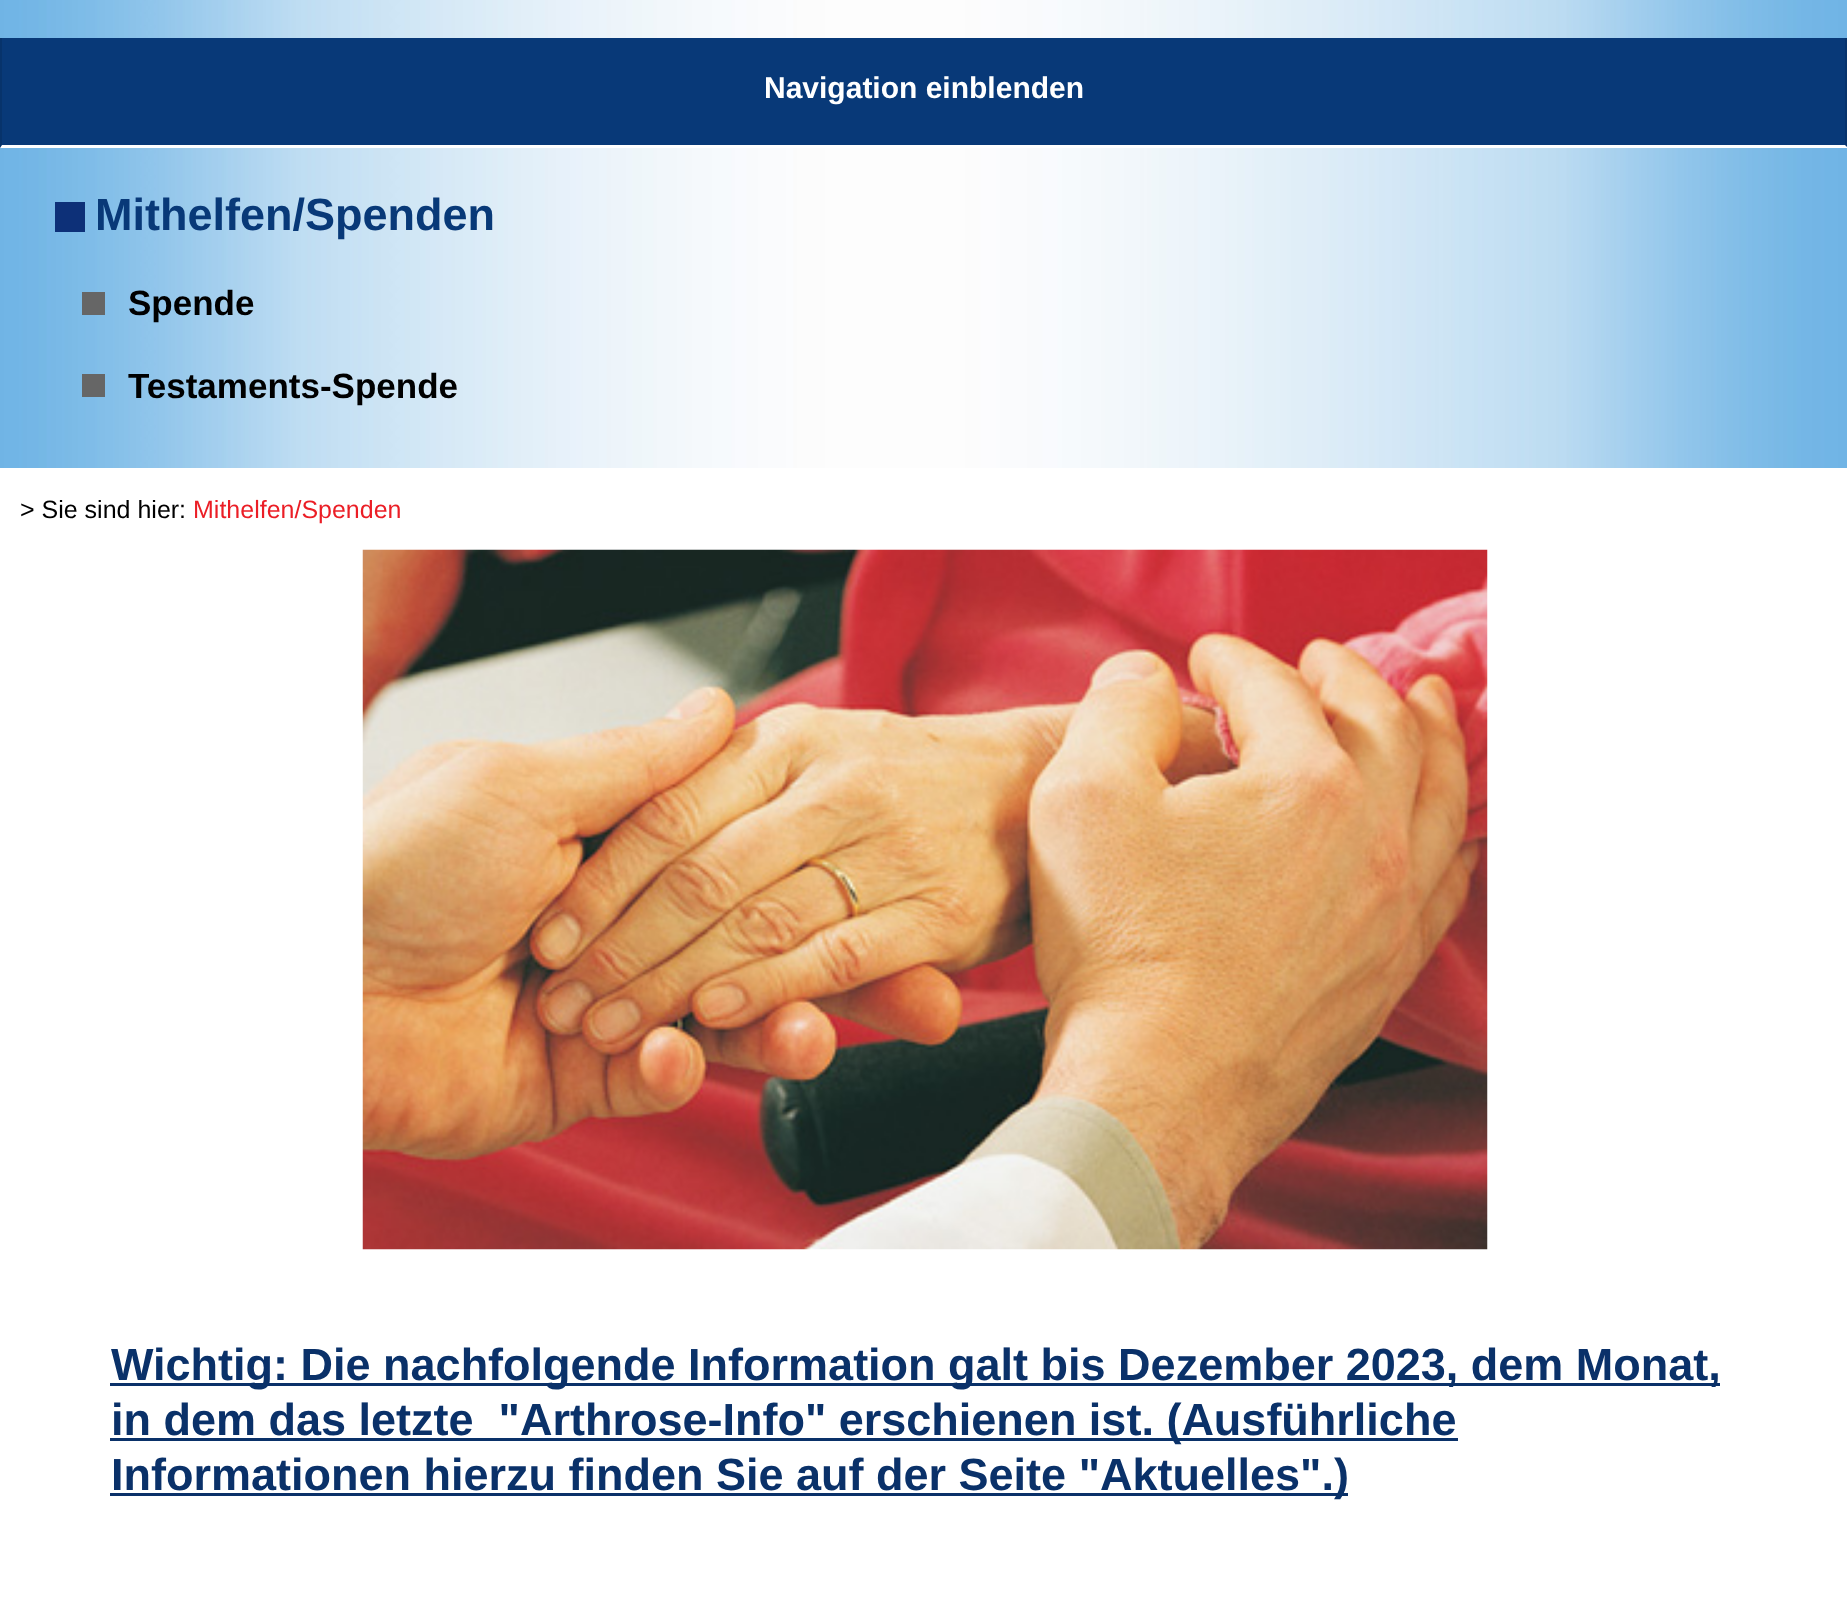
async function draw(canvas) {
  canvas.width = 1847;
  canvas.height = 1616;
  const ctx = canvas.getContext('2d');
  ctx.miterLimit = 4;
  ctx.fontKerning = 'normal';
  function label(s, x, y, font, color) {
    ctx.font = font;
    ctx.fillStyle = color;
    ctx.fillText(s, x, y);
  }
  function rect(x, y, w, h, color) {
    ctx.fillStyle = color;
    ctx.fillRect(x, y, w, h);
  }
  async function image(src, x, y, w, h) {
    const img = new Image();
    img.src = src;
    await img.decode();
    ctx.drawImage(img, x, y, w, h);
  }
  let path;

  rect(0, 0, 1847, 1616, '#fff');
  await image('assets/img1.png', 0, 0, 1847, 468);
  rect(0, 38, 1847, 110, '#083978');
  ctx.fillStyle = '#07336c';
  path = new Path2D('M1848 38V148L1845 145V38Z');
  ctx.fill(path);
  ctx.fillStyle = '#fff';
  path = new Path2D('M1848 148H0L2 145H1845Z');
  ctx.fill(path);
  ctx.fillStyle = '#0000001a';
  path = new Path2D('M0 148V38H2V145Z');
  ctx.fill(path);
  label('Navigation einblenden', 764, 98, 'bold 30px Liberation Sans', '#fff');
  rect(55, 202, 30, 30, '#0d3078');
  label('Mithelfen/Spenden', 95, 230, 'bold 45px Liberation Sans', '#083978');
  rect(82, 292, 23, 23, '#666');
  label('Spende', 128, 315, 'bold 35px Liberation Sans', '#000');
  rect(82, 374, 23, 23, '#666');
  label('Testaments-Spende', 128, 398, 'bold 35px Liberation Sans', '#000');
  label('> Sie sind hier:', 20, 518, '25px Liberation Sans', '#000');
  label('Mithelfen/Spenden', 193, 518, '25px Liberation Sans', '#eb1e26');
  await image('assets/img2.png', 362, 549, 1126, 701);
  rect(110, 1383, 1610, 3, '#0a3169');
  label('Wichtig: Die nachfolgende Information galt bis Dezember 2023, dem Monat,', 111, 1380, 'bold 45px Liberation Sans', '#0a3169');
  rect(110, 1438, 1348, 3, '#0a3169');
  label('in dem das letzte  "Arthrose-Info" erschienen ist. (Ausführliche', 111, 1435, 'bold 45px Liberation Sans', '#0a3169');
  rect(110, 1493, 1238, 3, '#0a3169');
  label('Informationen hierzu finden Sie auf der Seite "Aktuelles".)', 111, 1490, 'bold 45px Liberation Sans', '#0a3169');
}

draw(document.querySelector('canvas'));
